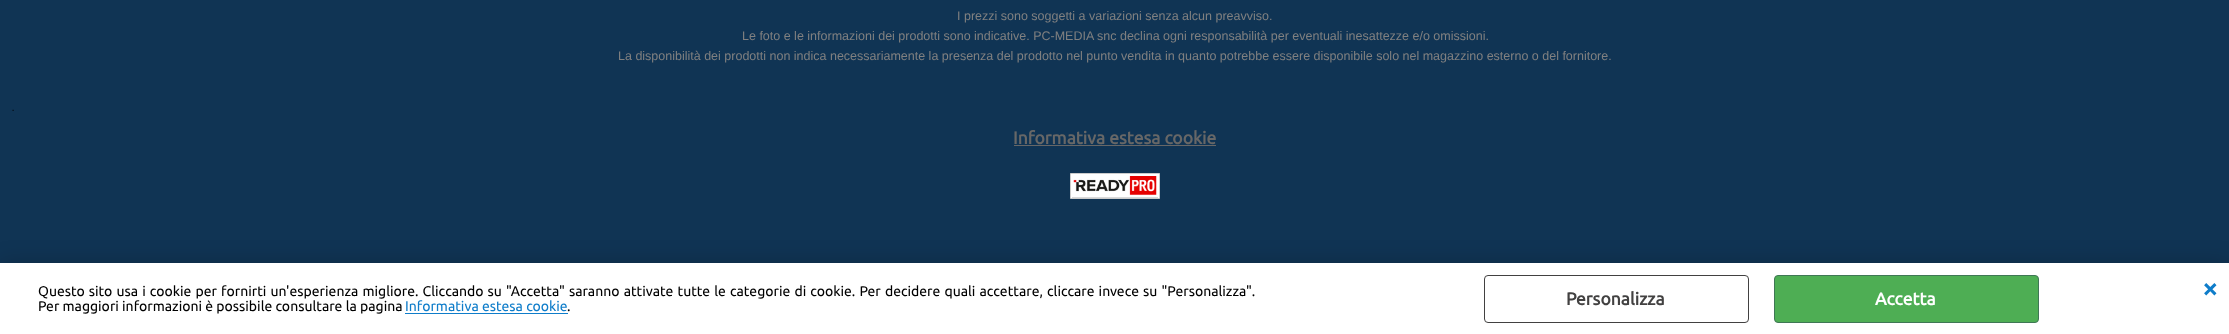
async function draw(canvas) {
  canvas.width = 2229;
  canvas.height = 334;
  const ctx = canvas.getContext('2d');
  ctx.miterLimit = 4;
  ctx.fontKerning = 'normal';
  function label(s, x, y, font, color) {
    ctx.font = font;
    ctx.fillStyle = color;
    ctx.fillText(s, x, y);
  }
  function rect(x, y, w, h, color) {
    ctx.fillStyle = color;
    ctx.fillRect(x, y, w, h);
  }
  async function image(src, x, y, w, h) {
    const img = new Image();
    img.src = src;
    await img.decode();
    ctx.drawImage(img, x, y, w, h);
  }

  rect(0, 0, 2229, 334, '#103454');
  label('I prezzi sono soggetti a variazioni senza alcun preavviso.', 957, 20, '12.5px Liberation Sans', '#808080');
  label('Le foto e le informazioni dei prodotti sono indicative. PC-MEDIA snc declina ogni responsabilità per eventuali inesattezze e/o omissioni.', 742, 40, '12.5px Liberation Sans', '#808080');
  label('La disponibilità dei prodotti non indica necessariamente la presenza del prodotto nel punto vendita in quanto potrebbe essere disponibile solo nel magazzino esterno o del fornitore.', 618, 60, '12.5px Liberation Sans', '#808080');
  await image('assets/img1.png', 12, 109, 2, 2);
  label('Informativa estesa cookie', 1013, 144, 'bold 17.5px Ubuntu', '#676767');
  rect(1014, 145, 202, 1, '#676767');
  ctx.fillStyle = '#fff';
  ctx.beginPath();
  ctx.rect(1070.5, 173.5, 89, 25);
  ctx.fill();
  ctx.strokeStyle = '#ccc';
  ctx.stroke();
  await image('assets/img2.png', 1072, 176, 86, 22);
  ctx.fillStyle = '#00000033';
  ctx.filter = 'blur(11px)';
  ctx.beginPath();
  ctx.rect(0, 263, 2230, 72);
  ctx.fill();
  ctx.filter = 'none';
  rect(0, 263, 2229, 71, '#fff');
  ctx.wordSpacing = '0.9px';
  label('Questo sito usa i cookie per fornirti un\'esperienza migliore. Cliccando su "Accetta" saranno attivate tutte le categorie di cookie. Per decidere quali accettare, cliccare invece su "Personalizza".', 38, 296, '14px Ubuntu', '#000');
  ctx.wordSpacing = '0px';
  label('Per maggiori informazioni è possibile consultare la pagina', 38, 311, '14px Ubuntu', '#000');
  label('Informativa estesa cookie', 405, 311, '14px Ubuntu', '#0f7dca');
  rect(405, 313, 163, 1, '#0f7dca');
  label('.', 567, 311, '14px Ubuntu', '#000');
  ctx.beginPath();
  ctx.roundRect(1484.5, 275.5, 264, 47, 3.5);
  ctx.strokeStyle = '#424141';
  ctx.stroke();
  label('Personalizza', 1566, 305, 'bold 17.5px Ubuntu', '#424141');
  ctx.fillStyle = '#4eae54';
  ctx.beginPath();
  ctx.roundRect(1774.5, 275.5, 264, 47, 3.5);
  ctx.fill();
  ctx.strokeStyle = '#3f7755';
  ctx.stroke();
  label('Accetta', 1875, 305, 'bold 17.5px Ubuntu', '#fff');
  label('×', 2202, 298, 'bold 28px Ubuntu', '#0f7dca');
}

draw(document.querySelector('canvas'));
